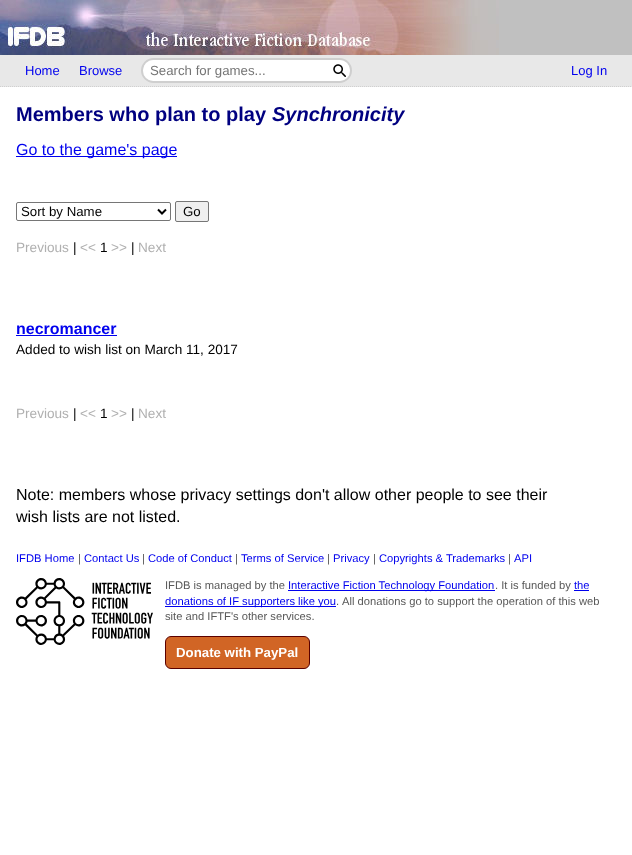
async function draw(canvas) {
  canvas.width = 632;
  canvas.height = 855;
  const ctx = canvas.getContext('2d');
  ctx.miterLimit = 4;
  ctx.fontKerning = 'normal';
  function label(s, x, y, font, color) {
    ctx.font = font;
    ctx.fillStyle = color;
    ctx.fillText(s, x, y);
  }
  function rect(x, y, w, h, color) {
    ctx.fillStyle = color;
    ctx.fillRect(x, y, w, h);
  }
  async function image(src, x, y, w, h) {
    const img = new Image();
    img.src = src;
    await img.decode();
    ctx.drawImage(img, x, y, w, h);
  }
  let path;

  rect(0, 0, 632, 855, '#fff');
  rect(0, 55, 632, 32, '#e8e8e8');
  path = new Path2D('M0 86.5H632');
  ctx.strokeStyle = '#d0d0d0';
  ctx.setLineDash([1, 1]);
  ctx.stroke(path);
  rect(499, 0, 133, 55, '#c0c0c0');
  await image('assets/img1.png', 0, 0, 499, 55);
  label('Home', 25, 75, '13px Liberation Sans', '#00e');
  label('Browse', 79, 75, '13px Liberation Sans', '#00e');
  ctx.beginPath();
  ctx.roundRect(142, 59, 209, 23, 11.5);
  ctx.strokeStyle = '#cfcfcf';
  ctx.lineWidth = 2;
  ctx.setLineDash([]);
  ctx.stroke();
  ctx.fillStyle = '#fff';
  ctx.beginPath();
  ctx.roundRect(143, 60, 188, 21, [10.5, 0, 0, 10.5]);
  ctx.fill();
  label('Search for games...', 150, 75, '13.25px Liberation Sans', '#757575');
  ctx.fillStyle = '#fff';
  ctx.beginPath();
  ctx.roundRect(331, 60, 19, 21, [0, 10.5, 10.5, 0]);
  ctx.fill();
  await image('assets/img2.png', 333, 64, 13, 13);
  label('Log In', 571, 75, '13px Liberation Sans', '#00e');
  label('Members who plan to play', 16, 121, 'bold 20px Liberation Sans', '#000080');
  label('Synchronicity', 272, 121, 'italic bold 20px Liberation Sans', '#000080');
  rect(16, 156, 161, 1, '#00e');
  label('Go to the game\'s page', 16, 155, '16px Liberation Sans', '#00e');
  ctx.beginPath();
  ctx.roundRect(16.5, 202.5, 154, 18, 1.5);
  ctx.strokeStyle = '#767676';
  ctx.lineWidth = 1;
  ctx.stroke();
  path = new Path2D('M158 209.5L162 213.5L166 209.5');
  ctx.strokeStyle = '#000';
  ctx.lineWidth = 2;
  ctx.stroke(path);
  label('Sort by Name', 21, 216, '13.25px Liberation Sans', '#000');
  ctx.fillStyle = '#efefef';
  ctx.beginPath();
  ctx.roundRect(175.5, 201.5, 33, 20, 1.5);
  ctx.fill();
  ctx.strokeStyle = '#767676';
  ctx.lineWidth = 1;
  ctx.stroke();
  label('Go', 183, 216, '13.25px Liberation Sans', '#000');
  label('Previous', 16, 252, '13.6px Liberation Sans', '#b0b0b0');
  label('|', 73, 252, '13.6px Liberation Sans', '#000');
  label('<<', 80, 252, '13.6px Liberation Sans', '#b0b0b0');
  label('1', 100, 252, '13.6px Liberation Sans', '#000');
  label('>>', 111, 252, '13.6px Liberation Sans', '#b0b0b0');
  label('|', 131, 252, '13.6px Liberation Sans', '#000');
  label('Next', 138, 252, '13.6px Liberation Sans', '#b0b0b0');
  label('necromancer', 16, 334, 'bold 16px Liberation Sans', '#00e');
  rect(16, 335, 101, 1, '#00e');
  label('Added to wish list on March 11, 2017', 16, 354, '13.6px Liberation Sans', '#000');
  label('Previous', 16, 418, '13.6px Liberation Sans', '#b0b0b0');
  label('|', 73, 418, '13.6px Liberation Sans', '#000');
  label('<<', 80, 418, '13.6px Liberation Sans', '#b0b0b0');
  label('1', 100, 418, '13.6px Liberation Sans', '#000');
  label('>>', 111, 418, '13.6px Liberation Sans', '#b0b0b0');
  label('|', 131, 418, '13.6px Liberation Sans', '#000');
  label('Next', 138, 418, '13.6px Liberation Sans', '#b0b0b0');
  label('Note: members whose privacy settings don\'t allow other people to see their', 16, 500, '16px Liberation Sans', '#000');
  label('wish lists are not listed.', 16, 522, '16px Liberation Sans', '#000');
  label('IFDB Home', 16, 562, '11.2px Liberation Sans', '#00e');
  label('|', 78, 562, '11.2px Liberation Sans', '#595959');
  label('Contact Us', 84, 562, '11.2px Liberation Sans', '#00e');
  label('|', 142, 562, '11.2px Liberation Sans', '#595959');
  label('Code of Conduct', 148, 562, '11.2px Liberation Sans', '#00e');
  label('|', 235, 562, '11.2px Liberation Sans', '#595959');
  label('Terms of Service', 241, 562, '11.2px Liberation Sans', '#00e');
  label('|', 327, 562, '11.2px Liberation Sans', '#595959');
  label('Privacy', 333, 562, '11.2px Liberation Sans', '#00e');
  label('|', 373, 562, '11.2px Liberation Sans', '#595959');
  label('Copyrights & Trademarks', 379, 562, '11.2px Liberation Sans', '#00e');
  label('|', 508, 562, '11.2px Liberation Sans', '#595959');
  label('API', 514, 562, '11.2px Liberation Sans', '#00e');
  await image('assets/img3.png', 16, 578, 137, 67);
  label('IFDB is managed by the', 165, 589, '11.2px Liberation Sans', '#595959');
  rect(288, 590, 207, 1, '#00e');
  label('Interactive Fiction Technology Foundation', 288, 589, '11.2px Liberation Sans', '#00e');
  label('. It is funded by', 495, 589, '11.2px Liberation Sans', '#595959');
  label('the', 574, 589, '11.2px Liberation Sans', '#00e');
  rect(574, 590, 15, 1, '#00e');
  rect(165, 606, 171, 1, '#00e');
  label('donations of IF supporters like you', 165, 605, '11.2px Liberation Sans', '#00e');
  label('.', 336, 605, '11.2px Liberation Sans', '#595959');
  label('All donations go to support the operation of this web', 342, 605, '11.2px Liberation Sans', '#595959');
  label('site and IFTF\'s other services.', 165, 620, '11.2px Liberation Sans', '#595959');
  ctx.fillStyle = '#d16525';
  ctx.beginPath();
  ctx.roundRect(165.5, 636.5, 144, 32, 5.5);
  ctx.fill();
  ctx.strokeStyle = '#5a0000';
  ctx.stroke();
  label('Donate with PayPal', 176, 657, 'bold 13.25px Liberation Sans', '#fff');
}

draw(document.querySelector('canvas'));
